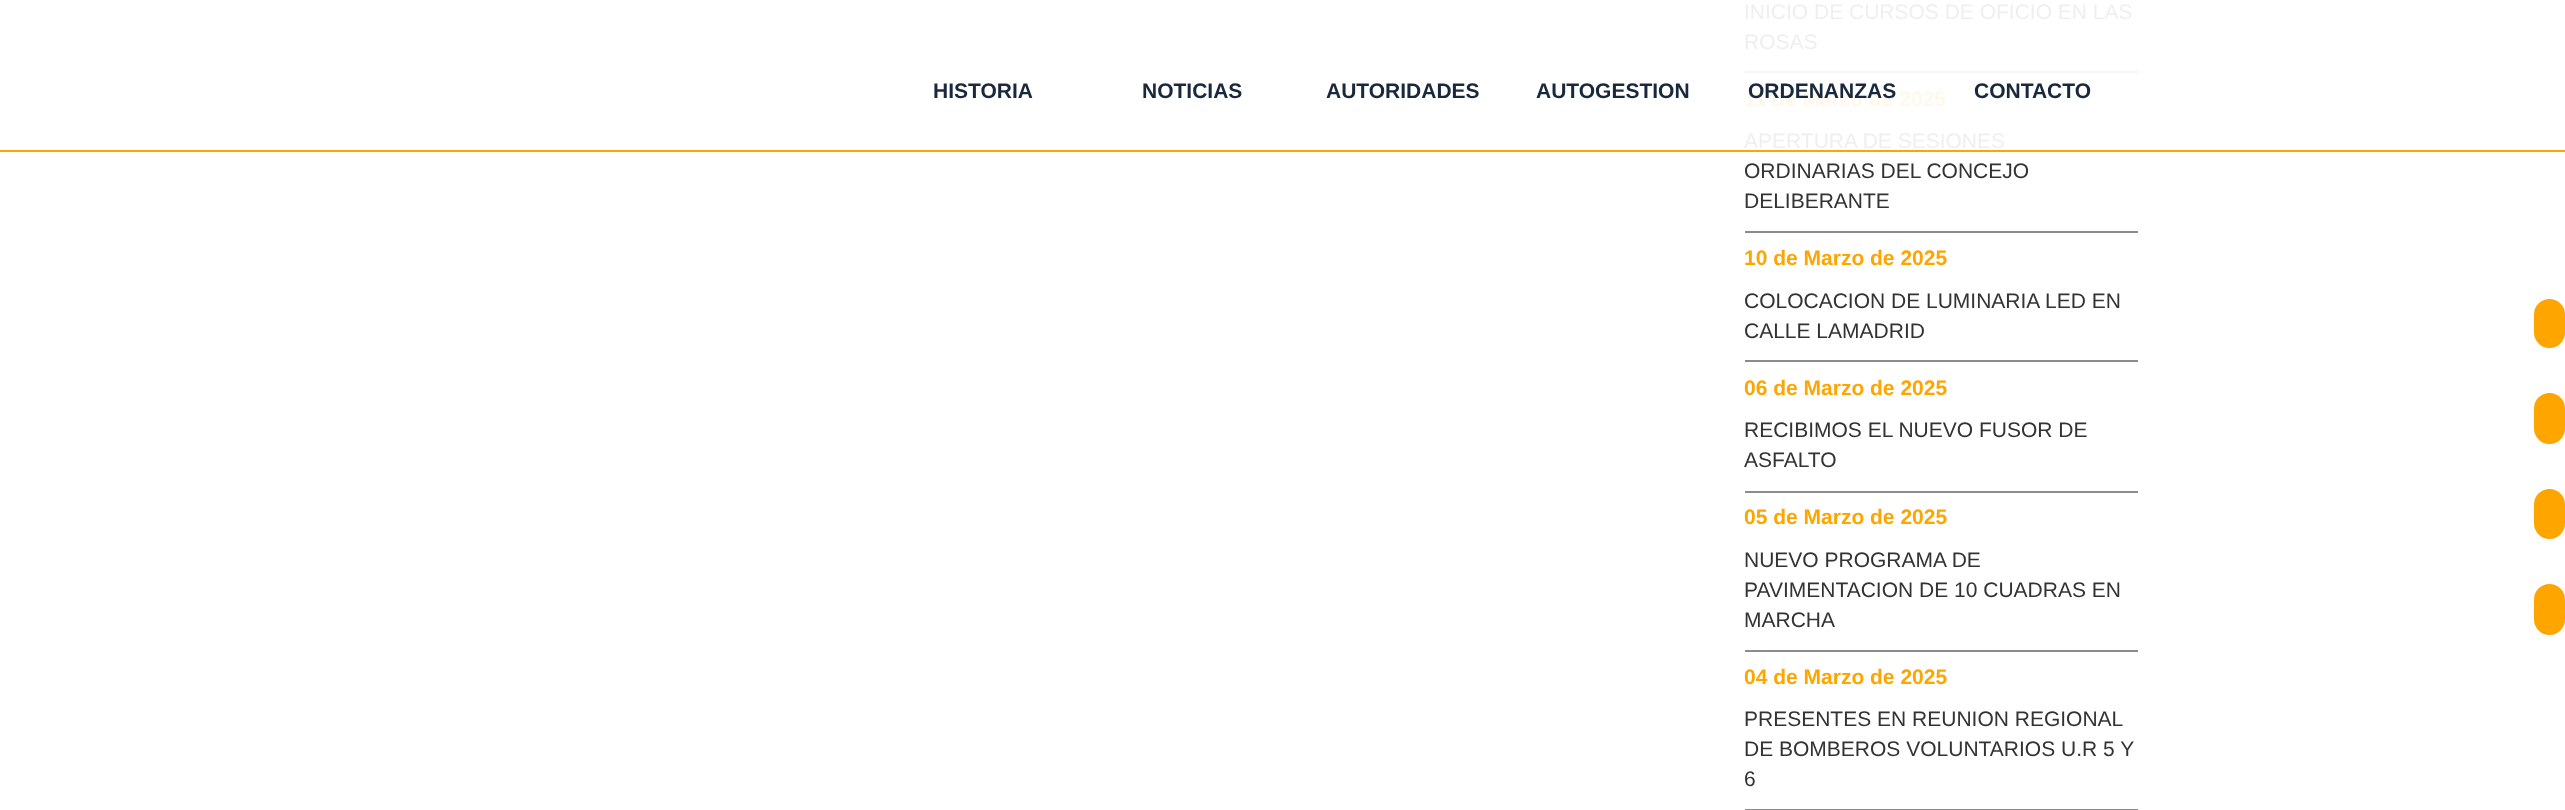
async function draw(canvas) {
  canvas.width = 2565;
  canvas.height = 810;
  const ctx = canvas.getContext('2d');
  ctx.miterLimit = 4;
  ctx.fontKerning = 'normal';
  function label(s, x, y, font, color) {
    ctx.font = font;
    ctx.fillStyle = color;
    ctx.fillText(s, x, y);
  }
  function rect(x, y, w, h, color) {
    ctx.fillStyle = color;
    ctx.fillRect(x, y, w, h);
  }

  rect(0, 0, 2565, 810, '#fff');
  label('INICIO DE CURSOS DE OFICIO EN LAS', 1744, 19, '21px Liberation Sans', '#efefef');
  label('ROSAS', 1744, 49, '21px Liberation Sans', '#efefef');
  rect(1745, 71, 393, 2, '#f6f6f6');
  label('11 de Marzo de 2025', 1744, 106, 'bold 21px Liberation Sans', '#fff8eb');
  label('APERTURA DE SESIONES', 1744, 148, '21px Liberation Sans', '#efefef');
  label('ORDINARIAS DEL CONCEJO', 1744, 178, '21px Liberation Sans', '#333');
  label('DELIBERANTE', 1744, 208, '21px Liberation Sans', '#333');
  rect(1745, 231, 393, 2, '#8c8c8c');
  label('10 de Marzo de 2025', 1744, 265, 'bold 21px Liberation Sans', '#fea500');
  label('COLOCACION DE LUMINARIA LED EN', 1744, 308, '21px Liberation Sans', '#333');
  label('CALLE LAMADRID', 1744, 338, '21px Liberation Sans', '#333');
  rect(1745, 360, 393, 2, '#8c8c8c');
  label('06 de Marzo de 2025', 1744, 395, 'bold 21px Liberation Sans', '#fea500');
  label('RECIBIMOS EL NUEVO FUSOR DE', 1744, 437, '21px Liberation Sans', '#333');
  label('ASFALTO', 1744, 467, '21px Liberation Sans', '#333');
  rect(1745, 491, 393, 2, '#8c8c8c');
  label('05 de Marzo de 2025', 1744, 524, 'bold 21px Liberation Sans', '#fea500');
  label('NUEVO PROGRAMA DE', 1744, 567, '21px Liberation Sans', '#333');
  label('PAVIMENTACION DE 10 CUADRAS EN', 1744, 597, '21px Liberation Sans', '#333');
  label('MARCHA', 1744, 627, '21px Liberation Sans', '#333');
  rect(1745, 650, 393, 2, '#8c8c8c');
  label('04 de Marzo de 2025', 1744, 684, 'bold 21px Liberation Sans', '#fea500');
  label('PRESENTES EN REUNION REGIONAL', 1744, 726, '21px Liberation Sans', '#333');
  label('DE BOMBEROS VOLUNTARIOS U.R 5 Y', 1744, 756, '21px Liberation Sans', '#333');
  label('6', 1744, 786, '21px Liberation Sans', '#333');
  rect(1745, 809, 393, 1, '#8c8c8c');
  rect(0, 150, 2565, 2, '#fea500');
  label('HISTORIA', 933, 98, 'bold 21px Liberation Sans', '#1a283d');
  label('NOTICIAS', 1142, 98, 'bold 21px Liberation Sans', '#1a283d');
  label('AUTORIDADES', 1326, 98, 'bold 21px Liberation Sans', '#1a283d');
  label('AUTOGESTION', 1536, 98, 'bold 21px Liberation Sans', '#1a283d');
  label('ORDENANZAS', 1748, 98, 'bold 21px Liberation Sans', '#1a283d');
  label('CONTACTO', 1974, 98, 'bold 21px Liberation Sans', '#1a283d');
  ctx.fillStyle = '#fea500';
  ctx.beginPath();
  ctx.roundRect(2535, 300, 29, 47, 14.5);
  ctx.fill();
  ctx.strokeStyle = '#fea500';
  ctx.lineWidth = 2;
  ctx.stroke();
  ctx.beginPath();
  ctx.roundRect(2535, 394, 29, 49, 14.5);
  ctx.fill();
  ctx.stroke();
  ctx.beginPath();
  ctx.roundRect(2535, 490, 29, 48, 14.5);
  ctx.fill();
  ctx.stroke();
  ctx.beginPath();
  ctx.roundRect(2535, 585, 29, 49, 14.5);
  ctx.fill();
  ctx.stroke();
}

draw(document.querySelector('canvas'));
